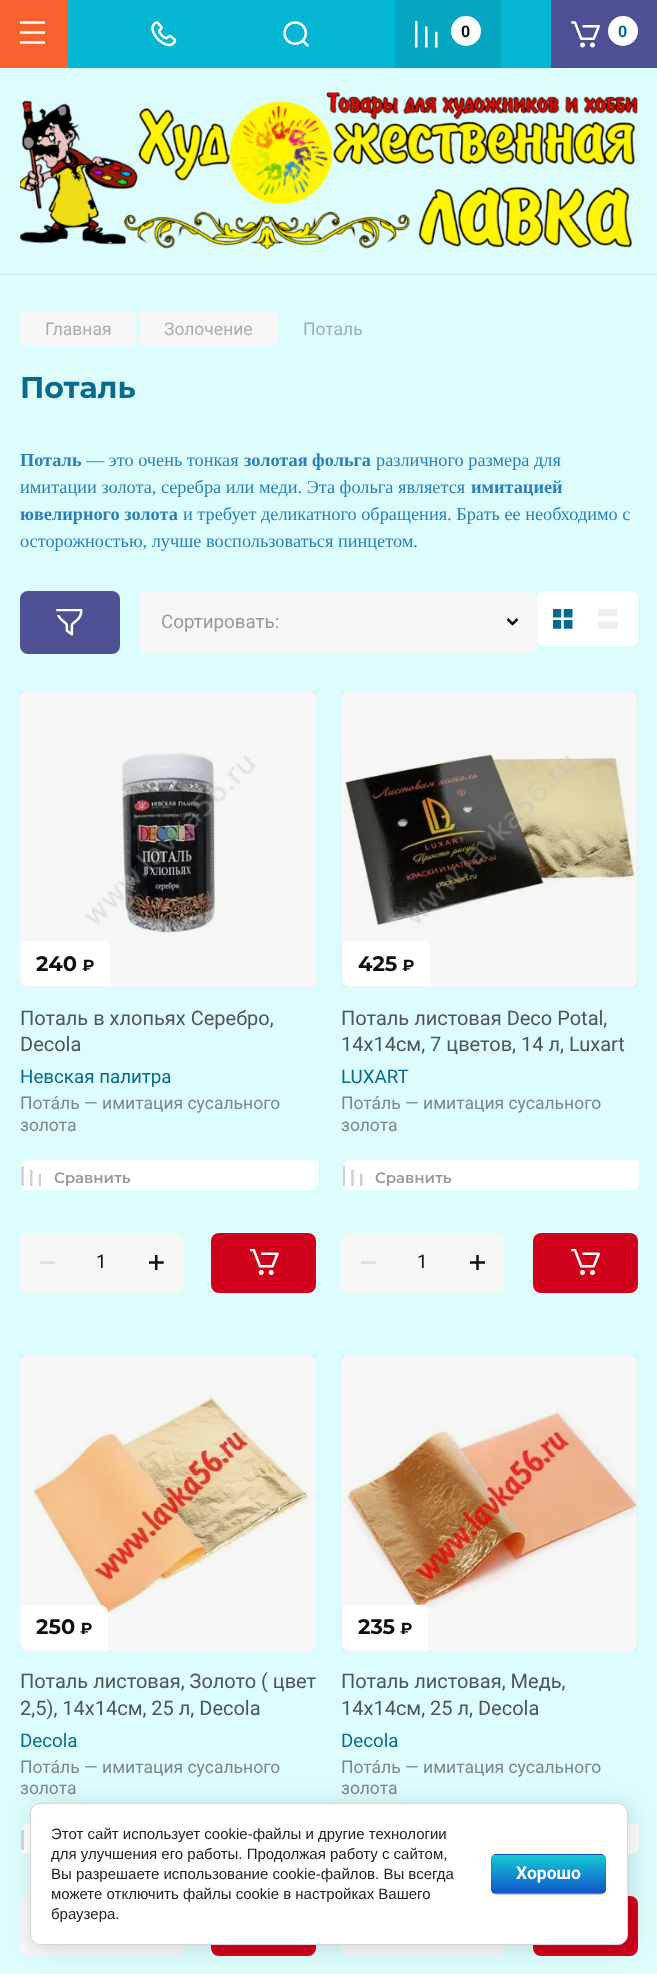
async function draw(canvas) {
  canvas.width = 657;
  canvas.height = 1974;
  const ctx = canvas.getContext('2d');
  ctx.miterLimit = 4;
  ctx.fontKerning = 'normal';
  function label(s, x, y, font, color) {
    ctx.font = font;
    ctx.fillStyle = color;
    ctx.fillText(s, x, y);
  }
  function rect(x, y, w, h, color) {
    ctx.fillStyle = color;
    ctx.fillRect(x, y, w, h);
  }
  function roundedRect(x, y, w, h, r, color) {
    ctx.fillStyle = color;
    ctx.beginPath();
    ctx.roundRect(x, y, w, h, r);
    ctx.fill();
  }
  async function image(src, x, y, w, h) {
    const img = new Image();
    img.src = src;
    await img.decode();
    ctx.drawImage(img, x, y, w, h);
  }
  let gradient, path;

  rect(0, 0, 657, 1974, '#ddfdfc');
  rect(68, 0, 483, 68, '#05b5d4');
  rect(0, 0, 68, 68, '#fb602f');
  await image('assets/img1.png', 20, 21, 25, 23);
  await image('assets/img2.png', 151, 21, 26, 26);
  await image('assets/img3.png', 283, 21, 27, 26);
  rect(395, 0, 106, 68, '#05a6c2');
  await image('assets/img4.png', 415, 21, 23, 27);
  ctx.fillStyle = '#fff';
  ctx.beginPath();
  ctx.arc(466, 31, 15, 0, 2 * Math.PI);
  ctx.fill();
  label('0', 461, 37, 'bold 16px Roboto', '#101010');
  rect(551, 0, 106, 68, '#4e5094');
  await image('assets/img5.png', 571, 21, 29, 27);
  ctx.fillStyle = '#fff';
  ctx.beginPath();
  ctx.arc(623, 31, 15, 0, 2 * Math.PI);
  ctx.fill();
  label('0', 618, 37, 'bold 16px Roboto', '#086b8d');
  ctx.fillStyle = '#cbe9e8';
  path = new Path2D('M0 274V275H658V69V274Z');
  ctx.fill(path);
  await image('assets/img6.png', 20, 92, 618, 157);
  roundedRect(20, 311, 116, 35, 5, '#f7f7f7');
  label('Главная', 45, 335, '17.5px Roboto', '#ababab');
  roundedRect(139, 311, 139, 35, 5, '#f7f7f7');
  label('Золочение', 164, 335, '17.5px Roboto', '#ababab');
  label('Поталь', 303, 335, '17.5px Roboto', '#9bafae');
  label('Поталь', 20, 398, 'bold 30px Montserrat', '#086b8d');
  label('Поталь', 20, 466, 'bold 18.3px Liberation Serif', '#2980b9');
  label('— это очень тонкая', 86, 466, '18.3px Liberation Serif', '#2980b9');
  label('золотая фольга', 244, 466, 'bold 18.3px Liberation Serif', '#2980b9');
  label('различного размера для', 376, 466, '18.3px Liberation Serif', '#2980b9');
  label('имитации золота, серебра или меди. Эта фольга является', 20, 493, '18.3px Liberation Serif', '#2980b9');
  label('имитацией', 471, 493, 'bold 18.3px Liberation Serif', '#2980b9');
  label('ювелирного золота', 20, 520, 'bold 18.3px Liberation Serif', '#2980b9');
  label('и требует деликатного обращения. Брать ее необходимо с', 183, 520, '18.3px Liberation Serif', '#2980b9');
  label('осторожностью, лучше воспользоваться пинцетом.', 20, 547, '18.3px Liberation Serif', '#2980b9');
  ctx.fillStyle = '#4e5094';
  ctx.beginPath();
  ctx.roundRect(21.5, 592.5, 97, 60, 6.5);
  ctx.fill();
  ctx.strokeStyle = '#4e5094';
  ctx.lineWidth = 3;
  ctx.stroke();
  await image('assets/img7.png', 56, 609, 27, 27);
  roundedRect(140, 591, 398, 63, 8, '#f7f7f7');
  label('Сортировать:', 161, 628, '18.75px Roboto', '#999');
  path = new Path2D('M517.5 619L512.5 624L507.5 619');
  ctx.strokeStyle = '#101010';
  ctx.lineWidth = 2.5;
  ctx.stroke(path);
  roundedRect(538, 591, 100, 55, 8, '#fff');
  roundedRect(538, 591, 50, 55, 8, '#fff');
  await image('assets/img8.png', 553, 609, 20, 20);
  roundedRect(588, 591, 50, 55, 8, '#fff');
  await image('assets/img9.png', 598, 609, 20, 20);
  await image('assets/img10.png', 20, 691, 296, 297);
  rect(20, 691, 296, 297, '#00000008');
  ctx.fillStyle = '#fff';
  ctx.beginPath();
  ctx.roundRect(21, 941, 89, 45, [0, 8, 0, 8]);
  ctx.fill();
  label('240', 36, 971, 'bold 21px Montserrat', '#101010');
  label('₽', 82, 971, 'bold 16px Montserrat', '#101010');
  label('Поталь в хлопьях Серебро,', 20, 1025, '20px Roboto', '#4e5757');
  label('Decola', 20, 1051, '20px Roboto', '#4e5757');
  label('Невская палитра', 20, 1083, '18.75px Roboto', '#086b8d');
  label('Пота́ль — имитация сусального', 20, 1109, '17.5px Roboto', '#7b8787');
  label('золота', 20, 1131, '17.5px Roboto', '#7b8787');
  ctx.fillStyle = '#fff';
  ctx.beginPath();
  ctx.roundRect(21, 1160, 297, 30, [8, 0, 8, 0]);
  ctx.fill();
  await image('assets/img11.png', 21, 1166, 20, 20);
  label('Сравнить', 54, 1183, '600 15px Montserrat', '#999');
  roundedRect(20, 1233, 163, 60, 8, '#f7f7f7');
  ctx.fillStyle = '#e0e0e0';
  path = new Path2D('M55 1264H40V1261L55 1261.5Z');
  ctx.fill(path);
  label('1', 96, 1268, '18.75px Roboto', '#101010');
  await image('assets/img12.png', 149, 1255, 15, 15);
  roundedRect(211, 1233, 105, 60, 8, '#d0021b');
  await image('assets/img13.png', 250, 1249, 29, 26);
  await image('assets/img14.png', 341, 691, 297, 297);
  rect(341, 691, 297, 297, '#00000008');
  ctx.fillStyle = '#fff';
  ctx.beginPath();
  ctx.roundRect(343, 941, 87, 45, [0, 8, 0, 8]);
  ctx.fill();
  label('425', 358, 971, 'bold 21px Montserrat', '#101010');
  label('₽', 402, 971, 'bold 16px Montserrat', '#101010');
  label('Поталь листовая Deco Potal,', 341, 1025, '20px Roboto', '#4e5757');
  label('14х14см, 7 цветов, 14 л, Luxart', 341, 1051, '20px Roboto', '#4e5757');
  label('LUXART', 341, 1083, '18.75px Roboto', '#086b8d');
  label('Пота́ль — имитация сусального', 341, 1109, '17.5px Roboto', '#7b8787');
  label('золота', 341, 1131, '17.5px Roboto', '#7b8787');
  ctx.fillStyle = '#fff';
  ctx.beginPath();
  ctx.roundRect(343, 1160, 296, 30, [8, 0, 8, 0]);
  ctx.fill();
  await image('assets/img15.png', 343, 1166, 20, 20);
  label('Сравнить', 375, 1183, '600 15px Montserrat', '#999');
  roundedRect(341, 1233, 163, 60, 8, '#f7f7f7');
  ctx.fillStyle = '#e0e0e0';
  path = new Path2D('M376 1264H361V1261L376 1261.5Z');
  ctx.fill(path);
  label('1', 417, 1268, '18.75px Roboto', '#101010');
  await image('assets/img16.png', 470, 1255, 15, 15);
  roundedRect(533, 1233, 105, 60, 8, '#d0021b');
  await image('assets/img17.png', 571, 1249, 29, 26);
  await image('assets/img18.png', 20, 1355, 296, 296);
  rect(20, 1355, 296, 296, '#00000008');
  ctx.fillStyle = '#fff';
  ctx.beginPath();
  ctx.roundRect(21, 1605, 87, 45, [0, 8, 0, 8]);
  ctx.fill();
  label('250', 36, 1634, 'bold 21px Montserrat', '#101010');
  label('₽', 80, 1634, 'bold 16px Montserrat', '#101010');
  label('Поталь листовая, Золото ( цвет', 20, 1688, '20px Roboto', '#4e5757');
  label('2,5), 14х14см, 25 л, Decola', 20, 1715, '20px Roboto', '#4e5757');
  label('Decola', 20, 1747, '18.75px Roboto', '#086b8d');
  label('Пота́ль — имитация сусального', 20, 1773, '17.5px Roboto', '#7b8787');
  label('золота', 20, 1794, '17.5px Roboto', '#7b8787');
  ctx.fillStyle = '#fff';
  ctx.beginPath();
  ctx.roundRect(21, 1824, 297, 30, [8, 0, 8, 0]);
  ctx.fill();
  await image('assets/img19.png', 21, 1830, 3, 20);
  roundedRect(20, 1896, 163, 60, 8, '#f7f7f7');
  roundedRect(211, 1896, 105, 60, 8, '#d0021b');
  await image('assets/img20.png', 341, 1355, 297, 296);
  rect(341, 1355, 297, 296, '#00000008');
  ctx.fillStyle = '#fff';
  ctx.beginPath();
  ctx.roundRect(343, 1605, 85, 45, [0, 8, 0, 8]);
  ctx.fill();
  label('235', 358, 1634, 'bold 21px Montserrat', '#101010');
  label('₽', 400, 1634, 'bold 16px Montserrat', '#101010');
  label('Поталь листовая, Медь,', 341, 1688, '20px Roboto', '#4e5757');
  label('14х14см, 25 л, Decola', 341, 1715, '20px Roboto', '#4e5757');
  label('Decola', 341, 1747, '18.75px Roboto', '#086b8d');
  label('Пота́ль — имитация сусального', 341, 1773, '17.5px Roboto', '#7b8787');
  label('золота', 341, 1794, '17.5px Roboto', '#7b8787');
  ctx.fillStyle = '#fff';
  ctx.beginPath();
  ctx.roundRect(343, 1824, 296, 30, [8, 0, 8, 0]);
  ctx.fill();
  roundedRect(341, 1896, 163, 60, 8, '#f7f7f7');
  roundedRect(533, 1896, 105, 60, 8, '#d0021b');
  ctx.fillStyle = '#00000024';
  ctx.filter = 'blur(11px)';
  ctx.beginPath();
  ctx.roundRect(33, 1805, 597, 143, 10);
  ctx.fill();
  ctx.filter = 'none';
  ctx.fillStyle = '#fff';
  ctx.beginPath();
  ctx.roundRect(30.5, 1803.5, 597, 141, 9.5);
  ctx.fill();
  ctx.strokeStyle = '#d6d6d6';
  ctx.lineWidth = 1;
  ctx.stroke();
  label('Этот сайт использует cookie-файлы и другие технологии', 51, 1839, '15px Liberation Sans', '#212121');
  label('для улучшения его работы. Продолжая работу с сайтом,', 51, 1859, '15px Liberation Sans', '#212121');
  label('Вы разрешаете использование cookie-файлов. Вы всегда', 51, 1879, '15px Liberation Sans', '#212121');
  label('можете отключить файлы cookie в настройках Вашего', 51, 1899, '15px Liberation Sans', '#212121');
  label('браузера.', 51, 1919, '15px Liberation Sans', '#212121');
  ctx.fillStyle = '#00000033';
  ctx.filter = 'blur(0.5px)';
  ctx.beginPath();
  ctx.roundRect(491, 1855, 115, 40, 5);
  ctx.fill();
  ctx.filter = 'none';
  ctx.save();
  ctx.beginPath();
  ctx.roundRect(491, 1854, 115, 40, 5);
  ctx.clip();
  gradient = ctx.createLinearGradient(549, 1818, 549, 1855);
  gradient.addColorStop(0, '#14c9d2');
  gradient.addColorStop(1, '#15c');
  ctx.fillStyle = gradient;
  ctx.fillRect(491, 1854, 115, 1);
  gradient = ctx.createLinearGradient(549, 1855, 549, 1893);
  gradient.addColorStop(0, '#14c9d2');
  gradient.addColorStop(1, '#15c');
  ctx.fillStyle = gradient;
  ctx.fillRect(491, 1855, 115, 38);
  gradient = ctx.createLinearGradient(549, 1893, 549, 1930);
  gradient.addColorStop(0, '#14c9d2');
  gradient.addColorStop(1, '#15c');
  ctx.fillStyle = gradient;
  ctx.fillRect(491, 1893, 115, 1);
  ctx.restore();
  ctx.beginPath();
  ctx.roundRect(491.5, 1854.5, 114, 39, 4.5);
  ctx.strokeStyle = '#0000001a';
  ctx.stroke();
  label('Хорошо', 516, 1879, 'bold 17.5px Roboto', '#fff');
}

draw(document.querySelector('canvas'));
